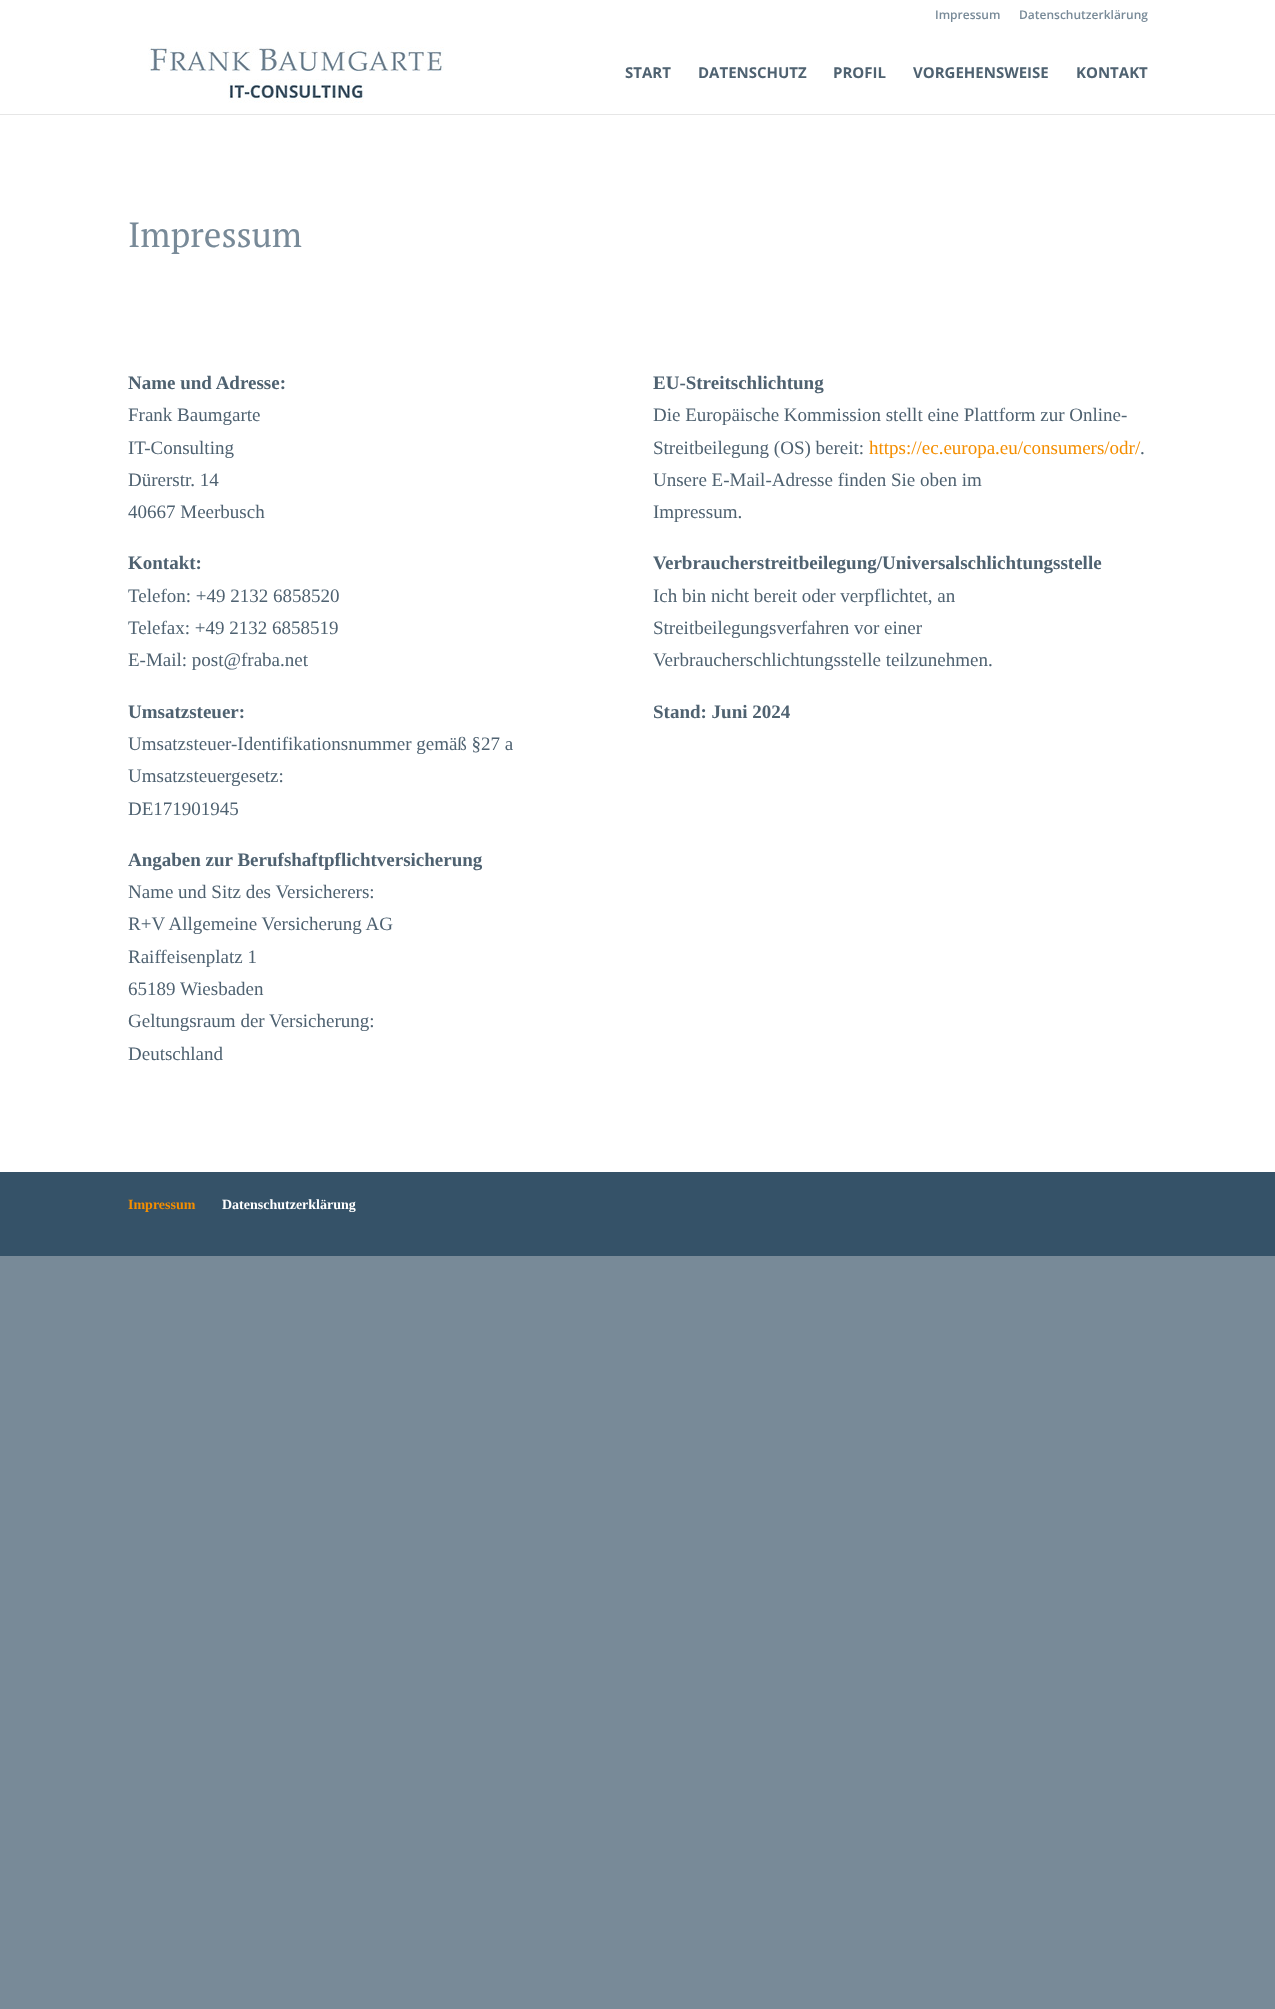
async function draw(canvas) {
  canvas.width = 1275;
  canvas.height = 2009;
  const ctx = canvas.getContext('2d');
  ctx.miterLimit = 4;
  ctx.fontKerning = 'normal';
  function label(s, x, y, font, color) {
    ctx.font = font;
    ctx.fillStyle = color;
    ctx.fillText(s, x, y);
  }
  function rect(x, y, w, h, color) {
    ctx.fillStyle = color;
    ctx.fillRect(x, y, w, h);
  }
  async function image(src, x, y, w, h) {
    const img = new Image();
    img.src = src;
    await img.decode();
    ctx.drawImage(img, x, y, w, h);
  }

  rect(0, 0, 1275, 2009, '#788a98');
  rect(0, 0, 1275, 114, '#fff');
  label('Impressum', 935, 19, '600 12px Open Sans', '#788a98');
  label('Datenschutzerklärung', 1019, 19, '600 12px Open Sans', '#788a98');
  rect(0, 114, 1275, 1, '#e6e6e6');
  await image('assets/img1.png', 148, 47, 296, 56);
  label('START', 625, 78, 'bold 15px Open Sans', '#4f6271');
  label('DATENSCHUTZ', 698, 78, 'bold 15px Open Sans', '#4f6271');
  label('PROFIL', 833, 78, 'bold 15px Open Sans', '#4f6271');
  label('VORGEHENSWEISE', 913, 78, 'bold 15px Open Sans', '#4f6271');
  label('KONTAKT', 1076, 78, 'bold 15px Open Sans', '#4f6271');
  rect(0, 115, 1275, 1057, '#fff');
  label('Impressum', 128, 247, '35px PT Serif', '#788a98');
  label('Name und Adresse:', 128, 389, 'bold 19px Liberation Serif', '#4f6271');
  label('Frank Baumgarte', 128, 421, '19px Liberation Serif', '#4f6271');
  label('IT-Consulting', 128, 454, '19px Liberation Serif', '#4f6271');
  label('Dürerstr. 14', 128, 486, '19px Liberation Serif', '#4f6271');
  label('40667 Meerbusch', 128, 518, '19px Liberation Serif', '#4f6271');
  label('Kontakt:', 128, 569, 'bold 19px Liberation Serif', '#4f6271');
  label('Telefon: +49 2132 6858520', 128, 602, '19px Liberation Serif', '#4f6271');
  label('Telefax: +49 2132 6858519', 128, 634, '19px Liberation Serif', '#4f6271');
  label('E-Mail: post@fraba.net', 128, 666, '19px Liberation Serif', '#4f6271');
  label('Umsatzsteuer:', 128, 718, 'bold 19px Liberation Serif', '#4f6271');
  label('Umsatzsteuer-Identifikationsnummer gemäß §27 a', 128, 750, '19px Liberation Serif', '#4f6271');
  label('Umsatzsteuergesetz:', 128, 782, '19px Liberation Serif', '#4f6271');
  label('DE171901945', 128, 815, '19px Liberation Serif', '#4f6271');
  label('Angaben zur Berufshaftpflichtversicherung', 128, 866, 'bold 19px Liberation Serif', '#4f6271');
  label('Name und Sitz des Versicherers:', 128, 898, '19px Liberation Serif', '#4f6271');
  label('R+V Allgemeine Versicherung AG', 128, 930, '19px Liberation Serif', '#4f6271');
  label('Raiffeisenplatz 1', 128, 963, '19px Liberation Serif', '#4f6271');
  label('65189 Wiesbaden', 128, 995, '19px Liberation Serif', '#4f6271');
  label('Geltungsraum der Versicherung:', 128, 1027, '19px Liberation Serif', '#4f6271');
  label('Deutschland', 128, 1060, '19px Liberation Serif', '#4f6271');
  label('EU-Streitschlichtung', 653, 389, 'bold 19px Liberation Serif', '#4f6271');
  label('Die Europäische Kommission stellt eine Plattform zur Online-', 653, 421, '19px Liberation Serif', '#4f6271');
  label('Streitbeilegung (OS) bereit:', 653, 454, '19px Liberation Serif', '#4f6271');
  label('https://ec.europa.eu/consumers/odr/', 869, 454, '19px Liberation Serif', '#f48e00');
  label('.', 1140, 454, '19px Liberation Serif', '#4f6271');
  label('Unsere E-Mail-Adresse finden Sie oben im', 653, 486, '19px Liberation Serif', '#4f6271');
  label('Impressum.', 653, 518, '19px Liberation Serif', '#4f6271');
  label('Verbraucherstreitbeilegung/Universalschlichtungsstelle', 653, 569, 'bold 19px Liberation Serif', '#4f6271');
  label('Ich bin nicht bereit oder verpflichtet, an', 653, 602, '19px Liberation Serif', '#4f6271');
  label('Streitbeilegungsverfahren vor einer', 653, 634, '19px Liberation Serif', '#4f6271');
  label('Verbraucherschlichtungsstelle teilzunehmen.', 653, 666, '19px Liberation Serif', '#4f6271');
  label('Stand: Juni 2024', 653, 718, 'bold 19px Liberation Serif', '#4f6271');
  rect(0, 1172, 1275, 84, '#355268');
  label('Impressum', 128, 1209, 'bold 14px Liberation Serif', '#f48e00');
  label('Datenschutzerklärung', 222, 1209, 'bold 14px Liberation Serif', '#fff');
}

draw(document.querySelector('canvas'));
